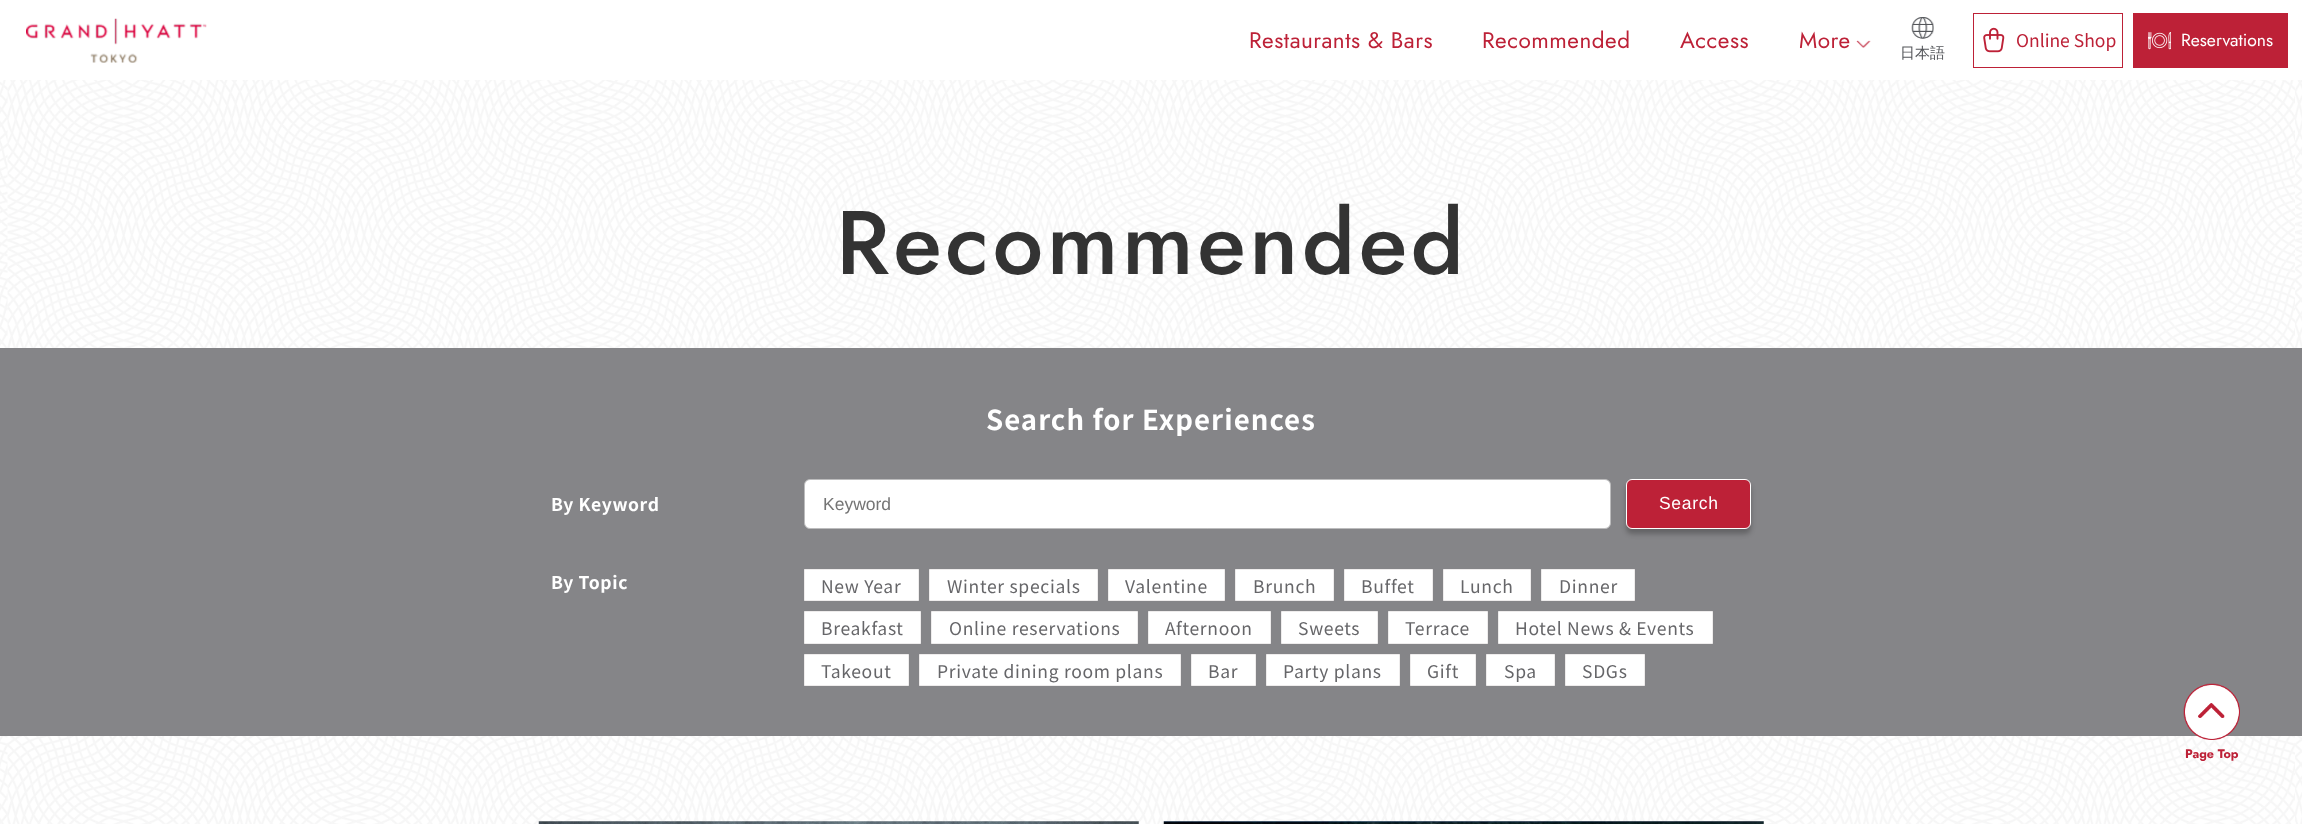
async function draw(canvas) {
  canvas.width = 2302;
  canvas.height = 824;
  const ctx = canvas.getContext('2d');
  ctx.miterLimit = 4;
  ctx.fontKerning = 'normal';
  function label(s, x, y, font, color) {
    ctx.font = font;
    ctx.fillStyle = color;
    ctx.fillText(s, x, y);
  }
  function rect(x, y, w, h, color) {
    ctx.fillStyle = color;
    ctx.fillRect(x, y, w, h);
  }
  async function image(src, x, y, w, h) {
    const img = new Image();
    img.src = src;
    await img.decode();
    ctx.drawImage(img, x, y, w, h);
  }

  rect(0, 0, 2302, 824, '#fff');
  await image('assets/img1.png', 0, 0, 2302, 824);
  rect(0, 0, 2302, 80, '#fffffff2');
  await image('assets/img2.png', 26, 18, 181, 45);
  ctx.letterSpacing = '0.5px';
  label('Restaurants & Bars', 1249, 48, '22.5px Jost', '#bd2137');
  label('Recommended', 1482, 48, '22.5px Jost', '#bd2137');
  label('Access', 1680, 48, '22.5px Jost', '#bd2137');
  label('More', 1799, 48, '22.5px Jost', '#bd2137');
  await image('assets/img3.png', 1856, 40, 15, 8);
  ctx.strokeStyle = '#bd2137';
  ctx.strokeRect(1973.5, 13.5, 149, 54);
  await image('assets/img4.png', 1983, 27, 22, 26);
  ctx.letterSpacing = '0px';
  label('Online Shop', 2016, 47, '17.5px Noto Sans JP', '#bd2137');
  rect(2133, 13, 155, 55, '#bd2137');
  await image('assets/img5.png', 2148, 32, 23, 18);
  label('Reservations', 2181, 46, '17.5px Jost', '#fff');
  await image('assets/img6.png', 1911, 17, 23, 22);
  label('日本語', 1900, 58, '500 15px WenQuanYi Zen Hei', '#54565a');
  ctx.letterSpacing = '3.6px';
  label('Recommended', 836, 274, '500 90px Jost', '#333');
  rect(0, 348, 2302, 388, '#858588');
  ctx.letterSpacing = '1.1px';
  label('Search for Experiences', 986, 430, 'bold 27.5px Noto Sans JP', '#fff');
  ctx.letterSpacing = '0.7px';
  label('By Keyword', 551, 511, 'bold 17.5px Noto Sans JP', '#fff');
  ctx.beginPath();
  ctx.roundRect(804.5, 479.5, 806, 49, 5.5);
  ctx.fill();
  ctx.strokeStyle = '#bcbcbd';
  ctx.stroke();
  ctx.letterSpacing = '0px';
  label('Keyword', 823, 510, '17.5px Liberation Sans', '#757575');
  ctx.fillStyle = '#00000040';
  ctx.filter = 'blur(2.5px)';
  ctx.beginPath();
  ctx.roundRect(1626, 484, 125, 50, 6);
  ctx.fill();
  ctx.filter = 'none';
  ctx.fillStyle = '#bd2137';
  ctx.beginPath();
  ctx.roundRect(1626.5, 479.5, 124, 49, 5.5);
  ctx.fill();
  ctx.strokeStyle = '#fff';
  ctx.stroke();
  ctx.letterSpacing = '0.7px';
  label('Search', 1659, 509, '17.5px Liberation Sans', '#fff');
  label('By Topic', 551, 589, 'bold 17.5px Noto Sans JP', '#fff');
  ctx.beginPath();
  ctx.rect(804.5, 569.5, 114, 31);
  ctx.fill();
  ctx.strokeStyle = '#eeecec';
  ctx.stroke();
  label('New Year', 821, 593, '17.5px Noto Sans JP', '#666669');
  ctx.fillStyle = '#fff';
  ctx.beginPath();
  ctx.rect(929.5, 569.5, 168, 31);
  ctx.fill();
  ctx.stroke();
  label('Winter specials', 947, 593, '17.5px Noto Sans JP', '#666669');
  ctx.fillStyle = '#fff';
  ctx.beginPath();
  ctx.rect(1108.5, 569.5, 116, 31);
  ctx.fill();
  ctx.stroke();
  label('Valentine', 1125, 593, '17.5px Noto Sans JP', '#666669');
  ctx.fillStyle = '#fff';
  ctx.beginPath();
  ctx.rect(1235.5, 569.5, 98, 31);
  ctx.fill();
  ctx.stroke();
  label('Brunch', 1253, 593, '17.5px Noto Sans JP', '#666669');
  ctx.fillStyle = '#fff';
  ctx.beginPath();
  ctx.rect(1344.5, 569.5, 88, 31);
  ctx.fill();
  ctx.stroke();
  label('Buffet', 1361, 593, '17.5px Noto Sans JP', '#666669');
  ctx.fillStyle = '#fff';
  ctx.beginPath();
  ctx.rect(1443.5, 569.5, 87, 31);
  ctx.fill();
  ctx.stroke();
  label('Lunch', 1460, 593, '17.5px Noto Sans JP', '#666669');
  ctx.fillStyle = '#fff';
  ctx.beginPath();
  ctx.rect(1541.5, 569.5, 93, 31);
  ctx.fill();
  ctx.stroke();
  label('Dinner', 1559, 593, '17.5px Noto Sans JP', '#666669');
  ctx.fillStyle = '#fff';
  ctx.beginPath();
  ctx.rect(804.5, 611.5, 116, 32);
  ctx.fill();
  ctx.stroke();
  label('Breakfast', 821, 635, '17.5px Noto Sans JP', '#666669');
  ctx.fillStyle = '#fff';
  ctx.beginPath();
  ctx.rect(931.5, 611.5, 206, 32);
  ctx.fill();
  ctx.stroke();
  label('Online reservations', 949, 635, '17.5px Noto Sans JP', '#666669');
  ctx.fillStyle = '#fff';
  ctx.beginPath();
  ctx.rect(1148.5, 611.5, 122, 32);
  ctx.fill();
  ctx.stroke();
  label('Afternoon', 1165, 635, '17.5px Noto Sans JP', '#666669');
  ctx.fillStyle = '#fff';
  ctx.beginPath();
  ctx.rect(1281.5, 611.5, 96, 32);
  ctx.fill();
  ctx.stroke();
  label('Sweets', 1298, 635, '17.5px Noto Sans JP', '#666669');
  ctx.fillStyle = '#fff';
  ctx.beginPath();
  ctx.rect(1388.5, 611.5, 99, 32);
  ctx.fill();
  ctx.stroke();
  label('Terrace', 1405, 635, '17.5px Noto Sans JP', '#666669');
  ctx.fillStyle = '#fff';
  ctx.beginPath();
  ctx.rect(1498.5, 611.5, 214, 32);
  ctx.fill();
  ctx.stroke();
  label('Hotel News & Events', 1515, 635, '17.5px Noto Sans JP', '#666669');
  ctx.fillStyle = '#fff';
  ctx.beginPath();
  ctx.rect(804.5, 654.5, 104, 31);
  ctx.fill();
  ctx.stroke();
  label('Takeout', 821, 678, '17.5px Noto Sans JP', '#666669');
  ctx.fillStyle = '#fff';
  ctx.beginPath();
  ctx.rect(919.5, 654.5, 261, 31);
  ctx.fill();
  ctx.stroke();
  label('Private dining room plans', 937, 678, '17.5px Noto Sans JP', '#666669');
  ctx.fillStyle = '#fff';
  ctx.beginPath();
  ctx.rect(1191.5, 654.5, 64, 31);
  ctx.fill();
  ctx.stroke();
  label('Bar', 1208, 678, '17.5px Noto Sans JP', '#666669');
  ctx.fillStyle = '#fff';
  ctx.beginPath();
  ctx.rect(1266.5, 654.5, 133, 31);
  ctx.fill();
  ctx.stroke();
  label('Party plans', 1283, 678, '17.5px Noto Sans JP', '#666669');
  ctx.fillStyle = '#fff';
  ctx.beginPath();
  ctx.rect(1410.5, 654.5, 65, 31);
  ctx.fill();
  ctx.stroke();
  label('Gift', 1427, 678, '17.5px Noto Sans JP', '#666669');
  ctx.fillStyle = '#fff';
  ctx.beginPath();
  ctx.rect(1486.5, 654.5, 68, 31);
  ctx.fill();
  ctx.stroke();
  label('Spa', 1504, 678, '17.5px Noto Sans JP', '#666669');
  ctx.fillStyle = '#fff';
  ctx.beginPath();
  ctx.rect(1565.5, 654.5, 79, 31);
  ctx.fill();
  ctx.stroke();
  label('SDGs', 1582, 678, '17.5px Noto Sans JP', '#666669');
  await image('assets/img7.png', 538, 821, 601, 3);
  await image('assets/img8.png', 1163, 821, 601, 3);
  await image('assets/img9.png', 2183, 683, 57, 57);
  ctx.letterSpacing = '0px';
  label('Page Top', 2185, 758, 'bold 12.5px Jost', '#bd2137');
}

draw(document.querySelector('canvas'));
